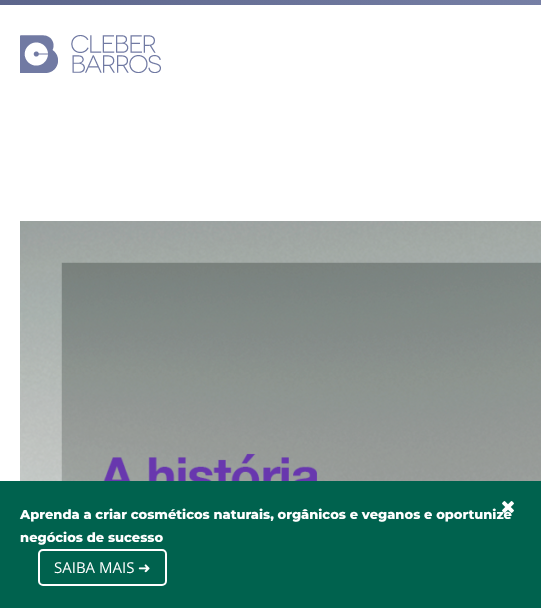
async function draw(canvas) {
  canvas.width = 541;
  canvas.height = 608;
  const ctx = canvas.getContext('2d');
  ctx.miterLimit = 4;
  ctx.fontKerning = 'normal';
  function label(s, x, y, font, color) {
    ctx.font = font;
    ctx.fillStyle = color;
    ctx.fillText(s, x, y);
  }
  function rect(x, y, w, h, color) {
    ctx.fillStyle = color;
    ctx.fillRect(x, y, w, h);
  }
  async function image(src, x, y, w, h) {
    const img = new Image();
    img.src = src;
    await img.decode();
    ctx.drawImage(img, x, y, w, h);
  }
  let gradient;

  rect(0, 0, 541, 608, '#fff');
  gradient = ctx.createLinearGradient(67, -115, 474, 120);
  gradient.addColorStop(0, '#5c658b');
  gradient.addColorStop(1, '#767fa5');
  ctx.fillStyle = gradient;
  ctx.fillRect(0, 0, 541, 5);
  await image('assets/img1.png', 20, 35, 141, 38);
  await image('assets/img2.png', 20, 221, 521, 260);
  rect(0, 481, 541, 127, '#00624e');
  label('Aprenda a criar cosméticos naturais, orgânicos e veganos e oportunize', 20, 519, '100 13px Montserrat', '#fff');
  await image('assets/img3.png', 502, 501, 12, 12);
  label('negócios de sucesso', 20, 542, '100 13px Montserrat', '#fff');
  ctx.beginPath();
  ctx.roundRect(39, 550, 127, 35, 4);
  ctx.strokeStyle = '#fff';
  ctx.lineWidth = 2;
  ctx.stroke();
  label('SAIBA MAIS', 54, 573, '15px Open Sans', '#fff');
  label('➜', 138, 573, '15px DejaVu Sans', '#fff');
}

draw(document.querySelector('canvas'));
